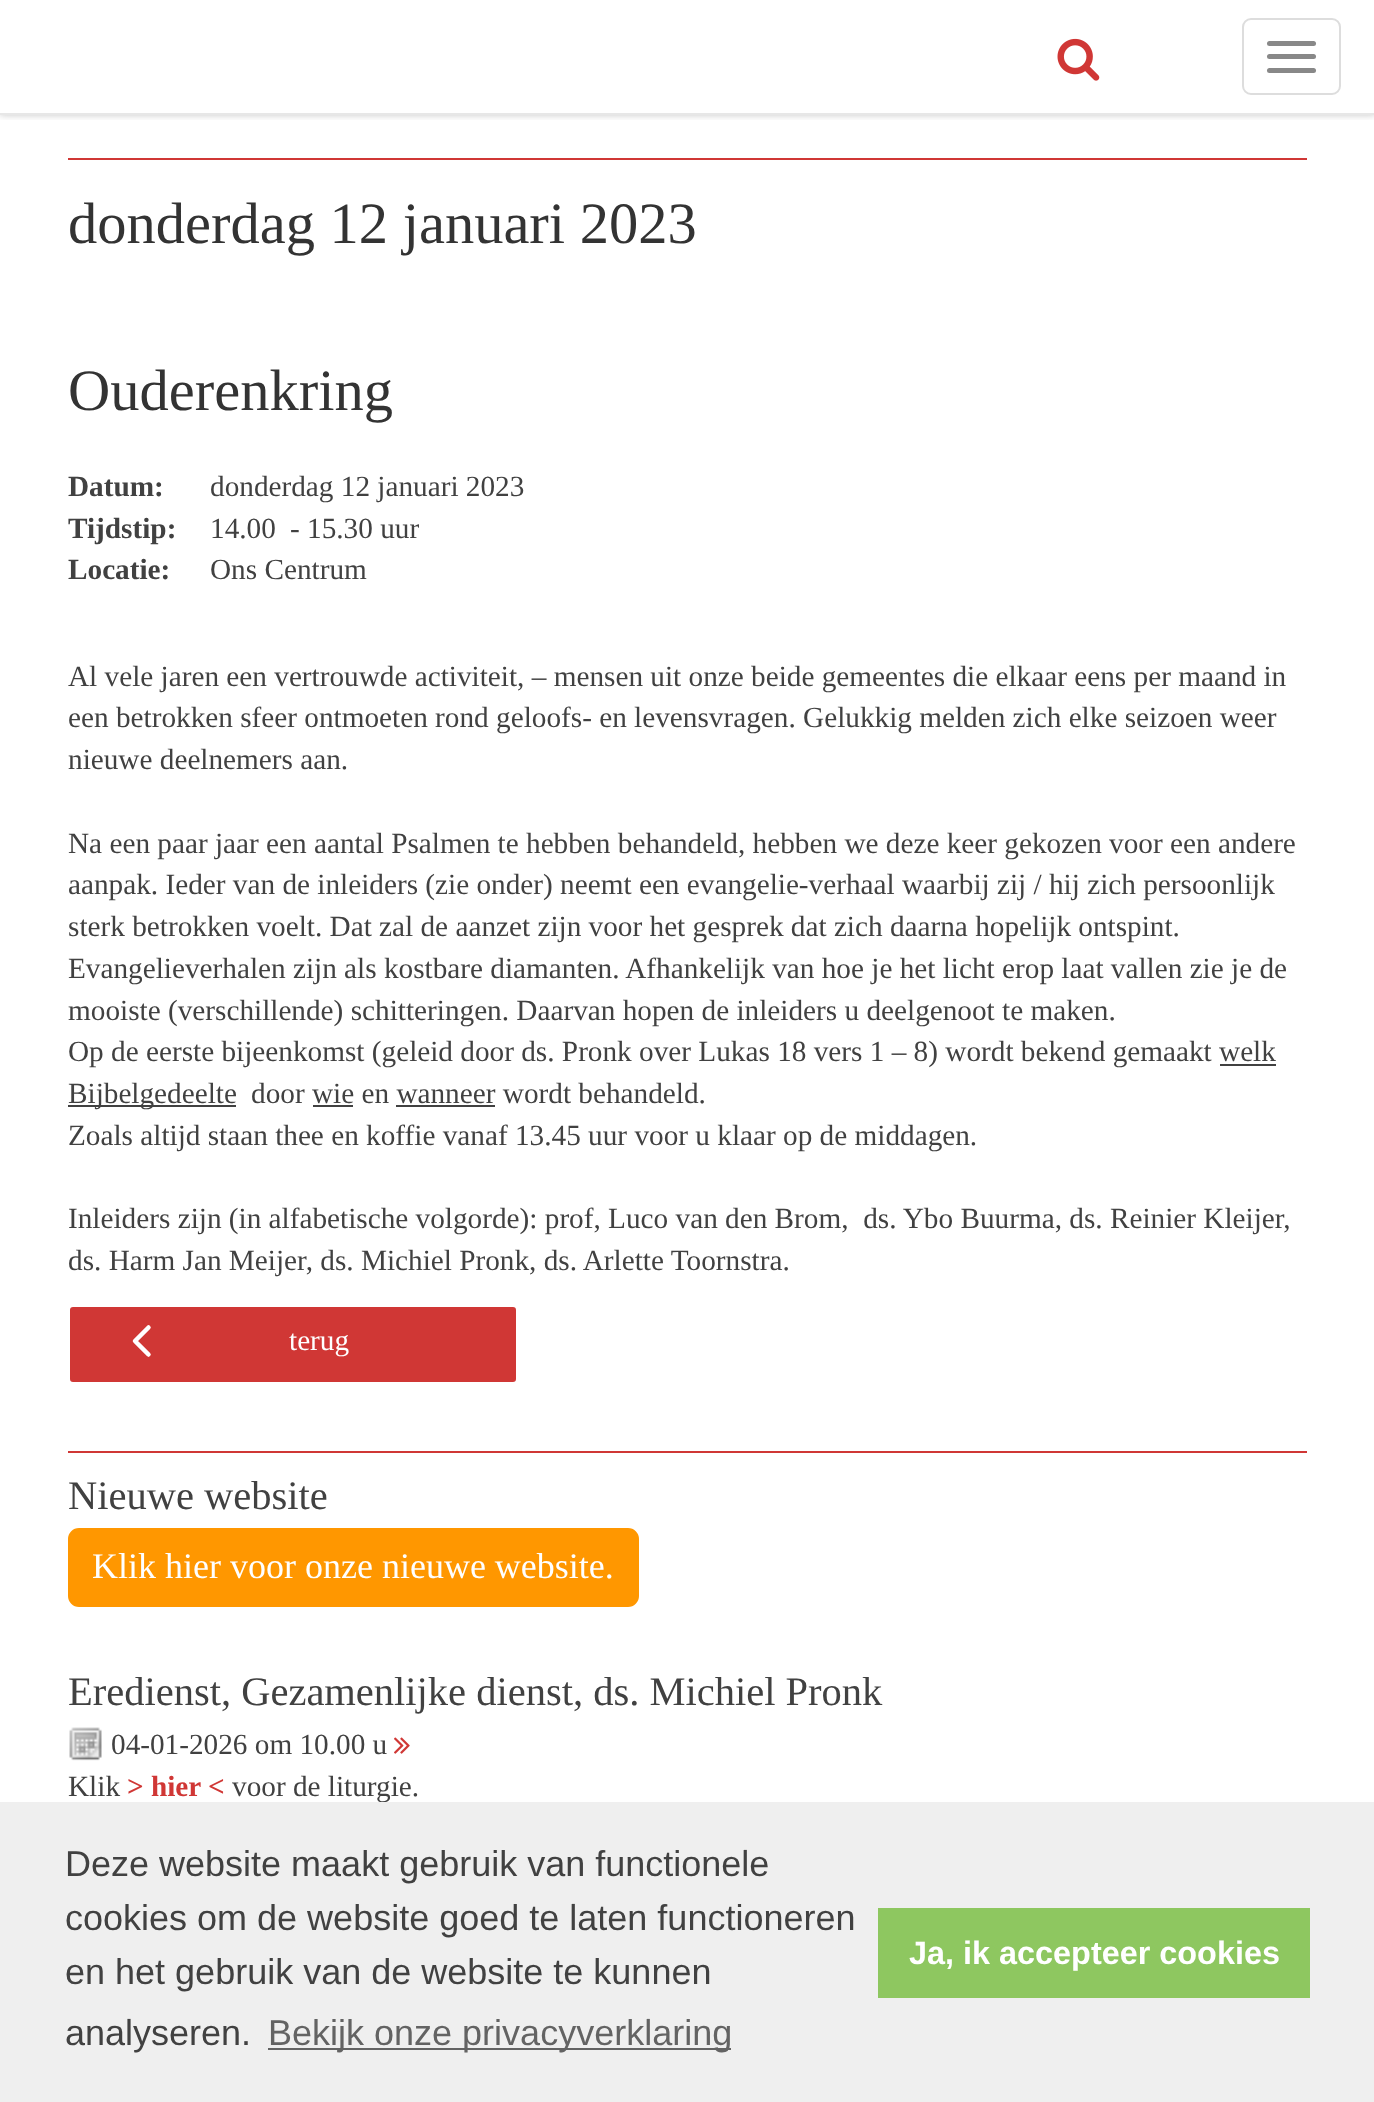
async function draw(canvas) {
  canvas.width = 1374;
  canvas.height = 2102;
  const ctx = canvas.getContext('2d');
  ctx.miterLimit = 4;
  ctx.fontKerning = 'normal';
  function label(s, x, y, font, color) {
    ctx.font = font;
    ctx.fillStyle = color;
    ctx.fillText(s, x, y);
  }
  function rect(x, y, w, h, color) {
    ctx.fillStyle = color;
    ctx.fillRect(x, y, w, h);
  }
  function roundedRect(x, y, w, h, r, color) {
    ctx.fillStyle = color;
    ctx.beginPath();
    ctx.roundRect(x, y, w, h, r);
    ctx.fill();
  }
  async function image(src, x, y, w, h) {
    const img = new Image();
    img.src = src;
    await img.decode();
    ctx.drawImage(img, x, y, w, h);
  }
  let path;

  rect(0, 0, 1374, 2102, '#fff');
  ctx.save();
  ctx.beginPath();
  ctx.rect(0, 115, 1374, 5);
  ctx.clip();
  ctx.fillStyle = '#00000038';
  ctx.filter = 'blur(3.5px)';
  ctx.beginPath();
  ctx.rect(0, 0, 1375, 115);
  ctx.fill();
  ctx.filter = 'none';
  ctx.restore();
  rect(0, 113, 1374, 2, '#e7e7e7');
  await image('assets/img1.png', 1057, 38, 43, 43);
  ctx.beginPath();
  ctx.roundRect(1243, 19, 97, 75, 8);
  ctx.strokeStyle = '#ddd';
  ctx.lineWidth = 2;
  ctx.stroke();
  roundedRect(1267, 41, 49, 5, 2.5, '#888');
  roundedRect(1267, 54, 49, 5, 2.5, '#888');
  roundedRect(1267, 68, 49, 5, 2.5, '#888');
  rect(68, 158, 1239, 2, '#d03735');
  label('donderdag 12 januari 2023', 68, 243, '58.5px Liberation Serif', '#333');
  label('Ouderenkring', 68, 410, '58.5px Liberation Serif', '#333');
  label('Datum:', 68, 496, 'bold 29.25px Liberation Serif', '#414141');
  label('donderdag 12 januari 2023', 210, 496, '29.25px Liberation Serif', '#414141');
  label('Tijdstip:', 68, 538, 'bold 29.25px Liberation Serif', '#414141');
  label('14.00', 210, 538, '29.25px Liberation Serif', '#414141');
  label('- 15.30 uur', 290, 538, '29.25px Liberation Serif', '#414141');
  label('Locatie:', 68, 579, 'bold 29.25px Liberation Serif', '#414141');
  label('Ons Centrum', 210, 579, '29.25px Liberation Serif', '#414141');
  label('Al vele jaren een vertrouwde activiteit, – mensen uit onze beide gemeentes die elkaar eens per maand in', 68, 686, '29.25px Liberation Serif', '#414141');
  label('een betrokken sfeer ontmoeten rond geloofs- en levensvragen. Gelukkig melden zich elke seizoen weer', 68, 727, '29.25px Liberation Serif', '#414141');
  label('nieuwe deelnemers aan.', 68, 769, '29.25px Liberation Serif', '#414141');
  label('Na een paar jaar een aantal Psalmen te hebben behandeld, hebben we deze keer gekozen voor een andere', 68, 853, '29.25px Liberation Serif', '#414141');
  label('aanpak. Ieder van de inleiders (zie onder) neemt een evangelie-verhaal waarbij zij / hij zich persoonlijk', 68, 894, '29.25px Liberation Serif', '#414141');
  label('sterk betrokken voelt. Dat zal de aanzet zijn voor het gesprek dat zich daarna hopelijk ontspint.', 68, 936, '29.25px Liberation Serif', '#414141');
  label('Evangelieverhalen zijn als kostbare diamanten. Afhankelijk van hoe je het licht erop laat vallen zie je de', 68, 978, '29.25px Liberation Serif', '#414141');
  label('mooiste (verschillende) schitteringen. Daarvan hopen de inleiders u deelgenoot te maken.', 68, 1020, '29.25px Liberation Serif', '#414141');
  label('Op de eerste bijeenkomst (geleid door ds. Pronk over Lukas 18 vers 1 – 8) wordt bekend gemaakt welk', 68, 1061, '29.25px Liberation Serif', '#414141');
  rect(68, 1105, 168, 2, '#414141');
  label('Bijbelgedeelte', 68, 1103, '29.25px Liberation Serif', '#414141');
  rect(1220, 1064, 56, 2, '#414141');
  label('door wie en wanneer wordt behandeld.', 251, 1103, '29.25px Liberation Serif', '#414141');
  rect(313, 1105, 40, 2, '#414141');
  rect(396, 1105, 99, 2, '#414141');
  label('Zoals altijd staan thee en koffie vanaf 13.45 uur voor u klaar op de middagen.', 68, 1145, '29.25px Liberation Serif', '#414141');
  label('Inleiders zijn (in alfabetische volgorde): prof, Luco van den Brom,  ds. Ybo Buurma, ds. Reinier Kleijer,', 68, 1228, '29.25px Liberation Serif', '#414141');
  label('ds. Harm Jan Meijer, ds. Michiel Pronk, ds. Arlette Toornstra.', 68, 1270, '29.25px Liberation Serif', '#414141');
  ctx.fillStyle = '#d03735';
  ctx.beginPath();
  ctx.roundRect(69, 1306, 448, 77, 4);
  ctx.fill();
  ctx.strokeStyle = '#fff';
  ctx.stroke();
  path = new Path2D('M148.5 1354.5L135 1341L148.5 1327.5');
  ctx.lineWidth = 4.5;
  ctx.lineCap = 'round';
  ctx.lineJoin = 'round';
  ctx.stroke(path);
  label('terug', 289, 1350, '29.25px Liberation Serif', '#fff');
  rect(68, 1451, 1239, 2, '#d03735');
  label('Nieuwe website', 68, 1509, '40.5px Liberation Serif', '#414141');
  ctx.fillStyle = '#ff9700';
  ctx.beginPath();
  ctx.roundRect(69, 1529, 569, 77, 10);
  ctx.fill();
  ctx.strokeStyle = '#ff9700';
  ctx.lineWidth = 2;
  ctx.lineJoin = 'miter';
  ctx.stroke();
  label('Klik hier voor onze nieuwe website.', 92, 1578, '36px Liberation Serif', '#fff');
  label('Eredienst, Gezamenlijke dienst, ds. Michiel Pronk', 68, 1705, '40.5px Liberation Serif', '#414141');
  await image('assets/img2.png', 69, 1727, 33, 34);
  label('04-01-2026 om 10.00 u', 111, 1754, '29.25px Liberation Serif', '#414141');
  await image('assets/img3.png', 394, 1737, 16, 17);
  label('Klik', 68, 1796, '29.25px Liberation Serif', '#414141');
  label('> hier <', 127, 1796, 'bold 29.25px Liberation Serif', '#d03735');
  label('voor de liturgie.', 232, 1796, '29.25px Liberation Serif', '#414141');
  rect(0, 1802, 1374, 300, '#efefef');
  label('Deze website maakt gebruik van functionele', 65, 1876, '36px Liberation Sans', '#414141');
  label('cookies om de website goed te laten functioneren', 65, 1930, '36px Liberation Sans', '#414141');
  label('en het gebruik van de website te kunnen', 65, 1984, '36px Liberation Sans', '#414141');
  label('analyseren.', 65, 2045, '36px Liberation Sans', '#414141');
  rect(268, 2048, 463, 2, '#636363');
  label('Bekijk onze privacyverklaring', 268, 2045, '36px Liberation Sans', '#636363');
  rect(878, 1908, 432, 90, '#8ec760');
  label('Ja, ik accepteer cookies', 909, 1964, 'bold 32.4px Liberation Sans', '#fff');
}

draw(document.querySelector('canvas'));
